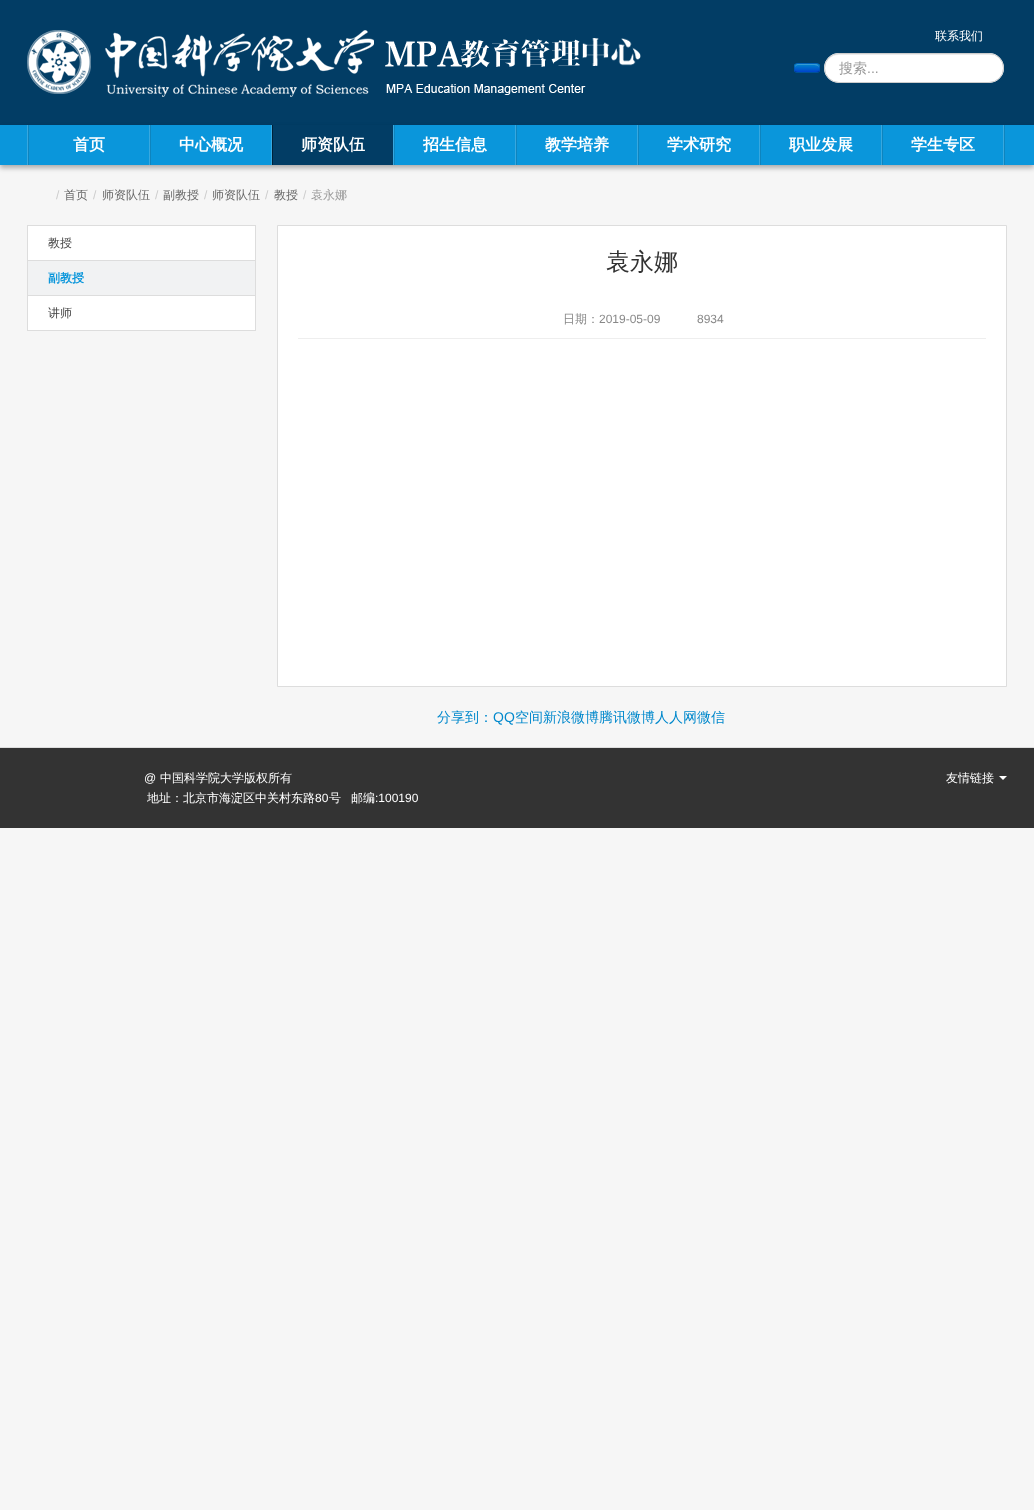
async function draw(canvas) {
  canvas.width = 1034;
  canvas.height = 1510;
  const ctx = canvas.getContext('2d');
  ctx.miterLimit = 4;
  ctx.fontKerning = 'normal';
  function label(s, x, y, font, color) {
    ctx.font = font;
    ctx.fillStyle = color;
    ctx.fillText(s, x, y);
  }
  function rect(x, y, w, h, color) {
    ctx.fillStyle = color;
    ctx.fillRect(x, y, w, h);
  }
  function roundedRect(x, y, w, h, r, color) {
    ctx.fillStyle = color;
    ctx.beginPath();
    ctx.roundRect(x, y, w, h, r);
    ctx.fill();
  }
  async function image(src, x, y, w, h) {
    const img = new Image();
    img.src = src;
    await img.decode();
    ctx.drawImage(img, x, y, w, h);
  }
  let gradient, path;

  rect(0, 0, 1034, 1510, '#f6f6f6');
  rect(0, 0, 1034, 125, '#023d65');
  await image('assets/img1.png', 27, 30, 347, 67);
  await image('assets/img2.png', 385, 38, 256, 57);
  label('联系我们', 935, 40, '500 12px WenQuanYi Zen Hei', '#fff');
  roundedRect(794, 63, 26, 10, 4, '#006dcc');
  ctx.save();
  ctx.beginPath();
  ctx.roundRect(794, 63, 26, 10, 4);
  ctx.clip();
  gradient = ctx.createLinearGradient(807, 64, 807, 72);
  gradient.addColorStop(0, '#08c');
  gradient.addColorStop(1, '#04c');
  ctx.fillStyle = gradient;
  ctx.fillRect(794, 64, 26, 8);
  ctx.restore();
  ctx.fillStyle = '#ffffff33';
  path = new Path2D('M798 65H811.5C815 65 818.5 65 819 68C819 63.5 816.5 64 813 64H801C798 64 795 63.5 795 67.5C795.5 66 796.5 65 798 65Z');
  ctx.fill(path);
  path = new Path2D('M818.5 71.5C818 72 817 72.5 816 72.5H798C797 72.5 796 72 795.5 71.5');
  ctx.strokeStyle = '#00000040';
  ctx.stroke(path);
  path = new Path2D('M795.5 71.5C794.5 70.5 794.5 69.5 794.5 68C794.5 63.5 797 63.5 801 63.5H813C817 63.5 819.5 63.5 819.5 68C819.5 69.5 819.5 70.5 818.5 71.5');
  ctx.strokeStyle = '#0000001a';
  ctx.stroke(path);
  roundedRect(824, 53, 180, 30, 15, '#fff');
  ctx.fillStyle = '#ececec';
  path = new Path2D('M839 55H992C1000 57 1004 64 1003 71C1003 68 1003 65 1002 63C996 49 973 54 964 54H864C854 54 823 48 825 69C825 62 830 55 839 55Z');
  ctx.fill(path);
  ctx.beginPath();
  ctx.roundRect(824.5, 53.5, 179, 29, 14.5);
  ctx.strokeStyle = '#ccc';
  ctx.stroke();
  label('搜索', 839, 73, '500 14px WenQuanYi Zen Hei', '#999');
  label('...', 867, 73, '14px Liberation Sans', '#999');
  ctx.fillStyle = '#0000004d';
  ctx.filter = 'blur(2.5px)';
  ctx.beginPath();
  ctx.rect(0, 128, 1034, 40);
  ctx.fill();
  ctx.filter = 'none';
  rect(0, 125, 1034, 40, '#0a96db');
  rect(27, 125, 1, 40, '#38a8df');
  rect(149, 125, 1, 40, '#38a8df');
  rect(28, 125, 1, 40, '#0e84be');
  label('首页', 73, 150, 'bold 16px WenQuanYi Zen Hei', '#fff');
  rect(271, 125, 1, 40, '#38a8df');
  rect(150, 125, 1, 40, '#0e84be');
  label('中心概况', 179, 150, 'bold 16px WenQuanYi Zen Hei', '#fff');
  rect(273, 125, 120, 40, '#023d65');
  rect(393, 125, 1, 40, '#38a8df');
  rect(272, 125, 1, 40, '#002239');
  label('师资队伍', 301, 150, 'bold 16px WenQuanYi Zen Hei', '#fff');
  rect(515, 125, 1, 40, '#38a8df');
  rect(394, 125, 1, 40, '#0e84be');
  label('招生信息', 423, 150, 'bold 16px WenQuanYi Zen Hei', '#fff');
  rect(637, 125, 1, 40, '#38a8df');
  rect(516, 125, 1, 40, '#0e84be');
  label('教学培养', 545, 150, 'bold 16px WenQuanYi Zen Hei', '#fff');
  rect(759, 125, 1, 40, '#38a8df');
  rect(638, 125, 1, 40, '#0e84be');
  label('学术研究', 667, 150, 'bold 16px WenQuanYi Zen Hei', '#fff');
  rect(881, 125, 1, 40, '#38a8df');
  rect(760, 125, 1, 40, '#0e84be');
  label('职业发展', 789, 150, 'bold 16px WenQuanYi Zen Hei', '#fff');
  rect(1004, 125, 1, 40, '#0e84be');
  rect(1003, 125, 1, 40, '#38a8df');
  rect(882, 125, 1, 40, '#0e84be');
  label('学生专区', 911, 150, 'bold 16px WenQuanYi Zen Hei', '#fff');
  label('/', 56, 199, '12px Liberation Sans', '#ccc');
  label('首页', 64, 199, '500 12px WenQuanYi Zen Hei', '#666');
  label('/', 93, 199, '12px Liberation Sans', '#ccc');
  label('师资队伍', 102, 199, '500 12px WenQuanYi Zen Hei', '#666');
  label('/', 155, 199, '12px Liberation Sans', '#ccc');
  label('副教授', 163, 199, '500 12px WenQuanYi Zen Hei', '#666');
  label('/', 204, 199, '12px Liberation Sans', '#ccc');
  label('师资队伍', 212, 199, '500 12px WenQuanYi Zen Hei', '#666');
  label('/', 265, 199, '12px Liberation Sans', '#ccc');
  label('教授', 274, 199, '500 12px WenQuanYi Zen Hei', '#666');
  label('/', 303, 199, '12px Liberation Sans', '#ccc');
  label('袁永娜', 311, 199, '500 12px WenQuanYi Zen Hei', '#999');
  rect(27, 330, 229, 1, '#ddd');
  rect(28, 226, 227, 34, '#fff');
  rect(27, 225, 229, 1, '#ddd');
  rect(255, 225, 1, 35, '#ddd');
  rect(27, 225, 1, 35, '#ddd');
  label('教授', 48, 247, '500 12px WenQuanYi Zen Hei', '#444');
  rect(28, 261, 227, 34, '#f1f2f3');
  rect(27, 260, 229, 1, '#ddd');
  rect(255, 260, 1, 35, '#ddd');
  rect(27, 260, 1, 35, '#ddd');
  label('副教授', 48, 282, 'bold 12px WenQuanYi Zen Hei', '#0a96db');
  rect(28, 296, 227, 34, '#fff');
  rect(27, 295, 229, 1, '#ddd');
  rect(255, 295, 1, 35, '#ddd');
  rect(27, 295, 1, 35, '#ddd');
  label('讲师', 48, 317, '500 12px WenQuanYi Zen Hei', '#444');
  ctx.fillStyle = '#fff';
  ctx.beginPath();
  ctx.rect(277.5, 225.5, 729, 461);
  ctx.fill();
  ctx.strokeStyle = '#ddd';
  ctx.stroke();
  rect(298, 338, 688, 1, '#eee');
  label('袁永娜', 606, 270, '500 24px WenQuanYi Zen Hei', '#333');
  label('日期：', 563, 323, '500 12px WenQuanYi Zen Hei', '#888');
  label('2019-05-09', 599, 323, '12px Liberation Sans', '#888');
  label('8934', 697, 323, '12px Liberation Sans', '#888');
  label('分享到：', 437, 722, '500 14px WenQuanYi Zen Hei', '#08c');
  label('QQ', 493, 722, '14px Liberation Sans', '#08c');
  label('空间新浪微博腾讯微博人人网微信', 515, 722, '500 14px WenQuanYi Zen Hei', '#08c');
  rect(0, 748, 1034, 80, '#333');
  rect(0, 747, 1034, 1, '#ddd');
  label('@', 144, 782, '12px Liberation Sans', '#fff');
  label('中国科学院大学版权所有', 160, 782, '500 12px WenQuanYi Zen Hei', '#fff');
  label('地址：北京市海淀区中关村东路', 147, 802, '500 12px WenQuanYi Zen Hei', '#fff');
  label('80', 315, 802, '12px Liberation Sans', '#fff');
  label('号', 329, 802, '500 12px WenQuanYi Zen Hei', '#fff');
  label('邮编', 351, 802, '500 12px WenQuanYi Zen Hei', '#fff');
  label(':100190', 375, 802, '12px Liberation Sans', '#fff');
  label('友情链接', 946, 782, '500 12px WenQuanYi Zen Hei', '#fff');
  path = new Path2D('M999 776H1007L1003 780Z');
  ctx.fill(path);
}

draw(document.querySelector('canvas'));
